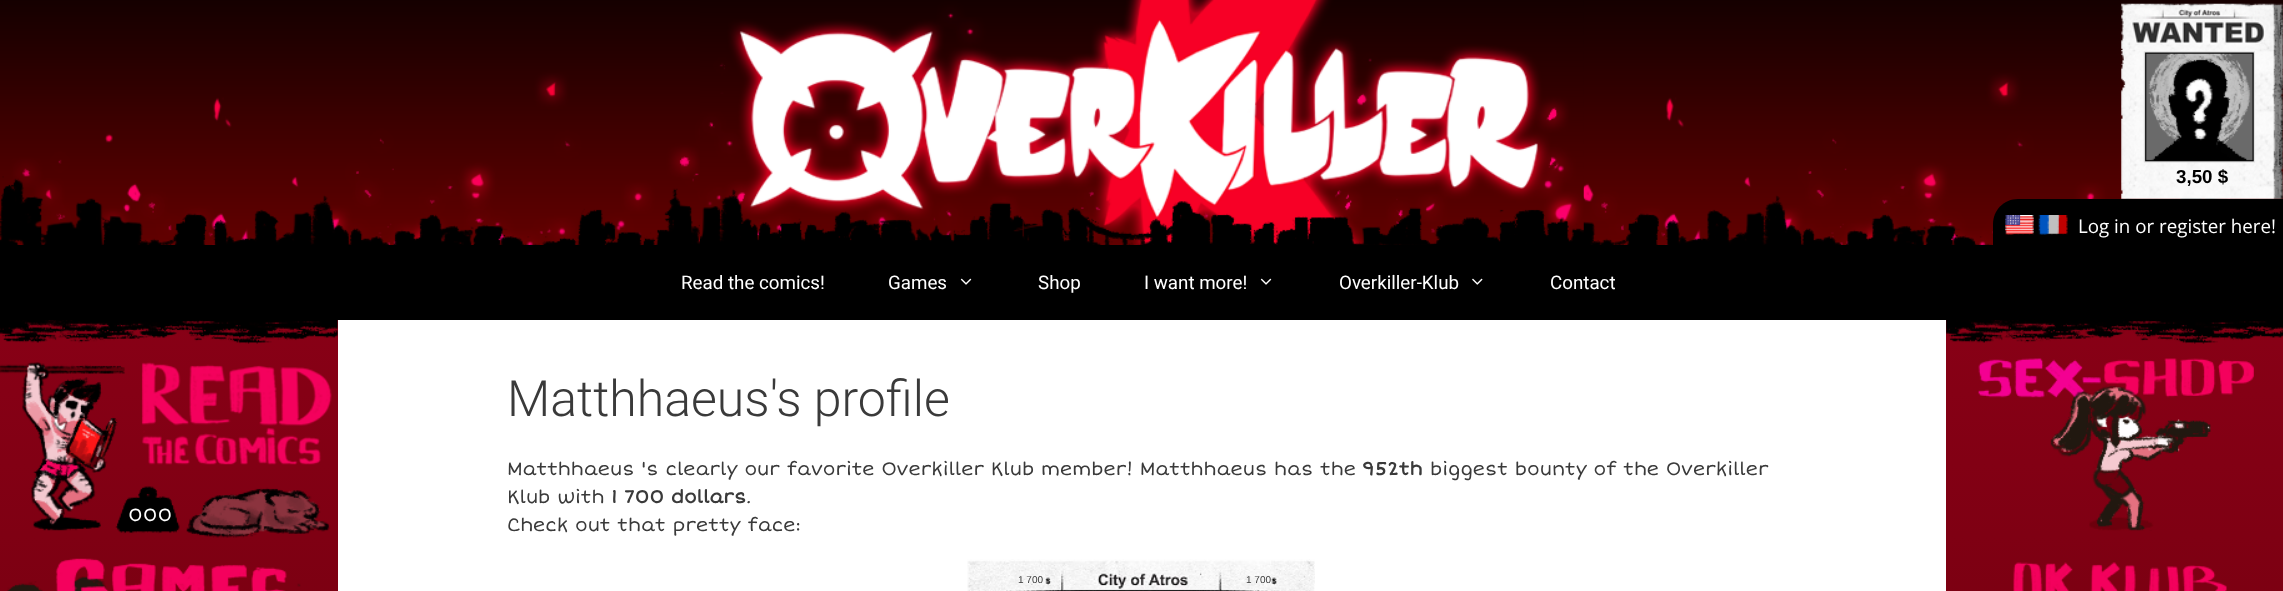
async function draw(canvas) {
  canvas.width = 2283;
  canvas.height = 591;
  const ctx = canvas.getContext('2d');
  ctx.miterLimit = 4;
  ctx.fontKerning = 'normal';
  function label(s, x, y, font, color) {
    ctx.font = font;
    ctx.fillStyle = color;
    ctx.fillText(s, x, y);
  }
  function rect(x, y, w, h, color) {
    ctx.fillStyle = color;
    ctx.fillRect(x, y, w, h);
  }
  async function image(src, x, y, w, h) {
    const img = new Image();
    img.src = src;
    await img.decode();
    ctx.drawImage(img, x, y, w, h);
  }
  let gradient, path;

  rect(0, 0, 2283, 591, '#fff');
  await image('assets/img1.png', 0, 0, 2283, 245);
  await image('assets/img2.png', 700, 0, 884, 245);
  await image('assets/img3.png', 2121, 3, 162, 196);
  await image('assets/img4.png', 2143, 51, 112, 112);
  label('3,50 $', 2176, 183, 'bold 18.75px Liberation Sans', '#000');
  rect(0, 245, 2283, 75, '#000');
  path = new Path2D('M2018 199H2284V258H1993V224C1993 210 2004 199 2018 199Z');
  ctx.fill(path);
  await image('assets/img5.png', 2005, 215, 29, 20);
  await image('assets/img6.png', 2038, 215, 30, 20);
  label('Log in or register here!', 2078, 233, '18.75px Open Sans', '#fff');
  label('Read the comics!', 681, 289, '18.75px Roboto', '#fff');
  label('Games', 888, 289, '18.75px Roboto', '#fff');
  await image('assets/img7.png', 960, 278, 12, 7);
  label('Shop', 1038, 289, '18.75px Roboto', '#fff');
  label('I want more!', 1144, 289, '18.75px Roboto', '#fff');
  await image('assets/img7.png', 1260, 278, 12, 7);
  label('Overkiller-Klub', 1339, 289, '18.75px Roboto', '#fff');
  await image('assets/img8.png', 1472, 278, 11, 7);
  label('Contact', 1550, 289, '18.75px Roboto', '#fff');
  gradient = ctx.createLinearGradient(169, 320, 169, 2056);
  gradient.addColorStop(0, '#880016');
  gradient.addColorStop(0.9, '#470000');
  ctx.fillStyle = gradient;
  ctx.fillRect(0, 320, 338, 271);
  await image('assets/img9.png', 0, 320, 338, 218);
  label('000', 128, 521, '18.75px Short Stack', '#fff');
  await image('assets/img10.png', 7, 558, 294, 33);
  label('Matthhaeus\'s profile', 507, 416, '300 50px Roboto', '#3a3a3a');
  label('Matthhaeus \'s clearly our favorite Overkiller Klub member! Matthhaeus has the', 507, 475, '18.75px Short Stack', '#3a3a3a');
  label('952th', 1362, 475, 'bold 18.75px Short Stack', '#3a3a3a');
  label('biggest bounty of the Overkiller', 1430, 475, '18.75px Short Stack', '#3a3a3a');
  label('Klub with', 507, 503, '18.75px Short Stack', '#3a3a3a');
  label('1 700 dollars', 611, 503, 'bold 18.75px Short Stack', '#3a3a3a');
  label('.', 746, 503, '18.75px Short Stack', '#3a3a3a');
  label('Check out that pretty face:', 507, 531, '18.75px Short Stack', '#3a3a3a');
  await image('assets/img11.png', 967, 559, 348, 32);
  label('1 700', 1018, 583, '10px Liberation Sans', '#3a3a3a');
  label('1 700', 1246, 583, '10px Liberation Sans', '#3a3a3a');
  gradient = ctx.createLinearGradient(2115, 320, 2115, 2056);
  gradient.addColorStop(0, '#880016');
  gradient.addColorStop(0.9, '#470000');
  ctx.fillStyle = gradient;
  ctx.fillRect(1946, 320, 337, 271);
  await image('assets/img12.png', 1946, 320, 337, 211);
  await image('assets/img13.png', 2013, 562, 214, 29);
}

draw(document.querySelector('canvas'));
